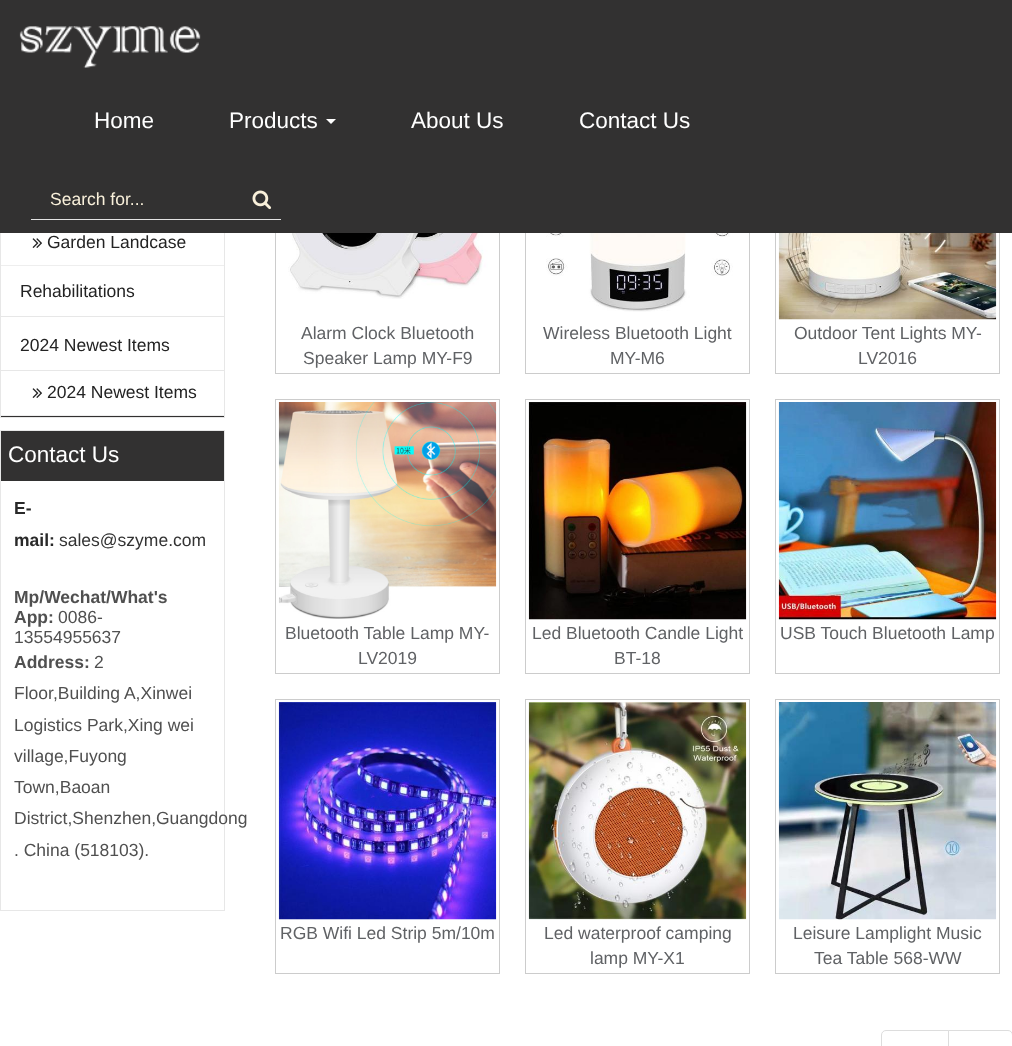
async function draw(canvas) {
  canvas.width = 1012;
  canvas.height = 1046;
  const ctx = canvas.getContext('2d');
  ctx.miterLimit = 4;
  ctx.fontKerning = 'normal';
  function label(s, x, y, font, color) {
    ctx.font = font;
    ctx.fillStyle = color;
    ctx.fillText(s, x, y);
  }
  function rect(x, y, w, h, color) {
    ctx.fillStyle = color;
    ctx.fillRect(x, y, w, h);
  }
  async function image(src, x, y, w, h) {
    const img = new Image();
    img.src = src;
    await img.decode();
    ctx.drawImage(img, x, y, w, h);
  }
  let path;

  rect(0, 0, 1012, 1046, '#fff');
  rect(1, 416, 223, 1, '#323131');
  ctx.strokeStyle = '#e7e7e7';
  ctx.strokeRect(0.5, 29.5, 224, 388);
  ctx.strokeStyle = '#ccc';
  ctx.strokeRect(275.5, 99.5, 224, 274);
  ctx.strokeRect(525.5, 99.5, 224, 274);
  ctx.strokeRect(775.5, 99.5, 224, 274);
  rect(0, 0, 1012, 233, '#323131');
  await image('assets/img1.png', 19, 26, 182, 42);
  label('Home', 94, 128, '22.5px Liberation Sans', '#fff');
  label('Products', 229, 128, '22.5px Liberation Sans', '#fff');
  path = new Path2D('M326 119H336L331 124Z');
  ctx.fill(path);
  label('About Us', 411, 128, '22.5px Liberation Sans', '#fff');
  label('Contact Us', 579, 128, '22.5px Liberation Sans', '#fff');
  rect(31, 219, 250, 1, '#e2e2e2');
  label('Search for...', 50, 205, '17.5px Liberation Sans', '#f9f0da');
  await image('assets/img2.png', 252, 190, 20, 20);
  rect(1, 265, 223, 1, '#eee');
  await image('assets/img3.png', 32, 238, 10, 10);
  label('Garden Landcase', 47, 248, '17.5px Liberation Sans', '#232323');
  rect(1, 316, 223, 1, '#e7e7e7');
  label('Rehabilitations', 20, 297, '17.5px Liberation Sans', '#232323');
  rect(1, 370, 223, 1, '#e7e7e7');
  label('2024 Newest Items', 20, 351, '17.5px Liberation Sans', '#232323');
  rect(1, 415, 223, 1, '#eee');
  await image('assets/img3.png', 32, 388, 10, 10);
  label('2024 Newest Items', 47, 398, '17.5px Liberation Sans', '#232323');
  rect(1, 431, 223, 50, '#323131');
  ctx.strokeStyle = '#e7e7e7';
  ctx.strokeRect(0.5, 430.5, 224, 480);
  label('Contact Us', 8, 462, '22.5px Liberation Sans', '#fff');
  label('E-', 14, 514, 'bold 17.5px Liberation Sans', '#292929');
  label('mail:', 14, 546, 'bold 17.5px Liberation Sans', '#292929');
  label('sales@szyme.com', 59, 546, '17.5px Liberation Sans', '#333');
  label('Mp/Wechat/What\'s', 14, 603, 'bold 17.5px Liberation Sans', '#505050');
  label('App:', 14, 623, 'bold 17.5px Liberation Sans', '#505050');
  label('0086-', 58, 623, '17.5px Liberation Sans', '#505050');
  label('13554955637', 14, 643, '17.5px Liberation Sans', '#505050');
  label('Address:', 14, 668, 'bold 17.5px Liberation Sans', '#505050');
  label('2', 94, 668, '17.5px Liberation Sans', '#505050');
  label('Floor,Building A,Xinwei', 14, 699, '17.5px Liberation Sans', '#505050');
  label('Logistics Park,Xing wei', 14, 731, '17.5px Liberation Sans', '#505050');
  label('village,Fuyong', 14, 762, '17.5px Liberation Sans', '#505050');
  label('Town,Baoan', 14, 793, '17.5px Liberation Sans', '#505050');
  label('District,Shenzhen,Guangdong', 14, 824, '17.5px Liberation Sans', '#505050');
  label('. China (518103).', 14, 856, '17.5px Liberation Sans', '#505050');
  await image('assets/img4.png', 288, 233, 200, 66);
  label('Alarm Clock Bluetooth', 301, 339, '17.5px Liberation Sans', '#606265');
  label('Speaker Lamp MY-F9', 303, 364, '17.5px Liberation Sans', '#606265');
  await image('assets/img5.png', 528, 233, 205, 79);
  label('Wireless Bluetooth Light', 543, 339, '17.5px Liberation Sans', '#606265');
  label('MY-M6', 610, 364, '17.5px Liberation Sans', '#606265');
  await image('assets/img6.png', 778, 233, 219, 87);
  label('Outdoor Tent Lights MY-', 794, 339, '17.5px Liberation Sans', '#606265');
  label('LV2016', 858, 364, '17.5px Liberation Sans', '#606265');
  ctx.strokeStyle = '#ccc';
  ctx.strokeRect(275.5, 399.5, 224, 274);
  await image('assets/img7.png', 278, 402, 219, 217);
  label('Bluetooth Table Lamp MY-', 285, 639, '17.5px Liberation Sans', '#606265');
  label('LV2019', 358, 664, '17.5px Liberation Sans', '#606265');
  ctx.strokeRect(525.5, 399.5, 224, 274);
  await image('assets/img8.png', 528, 402, 219, 218);
  label('Led Bluetooth Candle Light', 532, 639, '17.5px Liberation Sans', '#606265');
  label('BT-18', 614, 664, '17.5px Liberation Sans', '#606265');
  ctx.strokeRect(775.5, 399.5, 224, 274);
  await image('assets/img9.png', 778, 402, 219, 218);
  label('USB Touch Bluetooth Lamp', 780, 639, '17.5px Liberation Sans', '#606265');
  ctx.strokeRect(275.5, 699.5, 224, 274);
  await image('assets/img10.png', 278, 702, 219, 218);
  label('RGB Wifi Led Strip 5m/10m', 280, 939, '17.5px Liberation Sans', '#606265');
  ctx.strokeRect(525.5, 699.5, 224, 274);
  await image('assets/img11.png', 528, 702, 219, 218);
  label('Led waterproof camping', 544, 939, '17.5px Liberation Sans', '#606265');
  label('lamp MY-X1', 590, 964, '17.5px Liberation Sans', '#606265');
  ctx.strokeRect(775.5, 699.5, 224, 274);
  await image('assets/img12.png', 778, 702, 219, 218);
  label('Leisure Lamplight Music', 793, 939, '17.5px Liberation Sans', '#606265');
  label('Tea Table 568-WW', 814, 964, '17.5px Liberation Sans', '#606265');
  path = new Path2D('M886 1030.5H948.5V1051.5H886C883.5 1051.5 881.5 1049.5 881.5 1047V1035C881.5 1032.5 883.5 1030.5 886 1030.5Z');
  ctx.strokeStyle = '#ddd';
  ctx.stroke(path);
  ctx.fillStyle = '#fff';
  path = new Path2D('M948.5 1030.5H1008C1010.5 1030.5 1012.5 1032.5 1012.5 1035V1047C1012.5 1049.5 1010.5 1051.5 1008 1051.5H948.5Z');
  ctx.fill(path);
  ctx.stroke(path);
}

draw(document.querySelector('canvas'));
